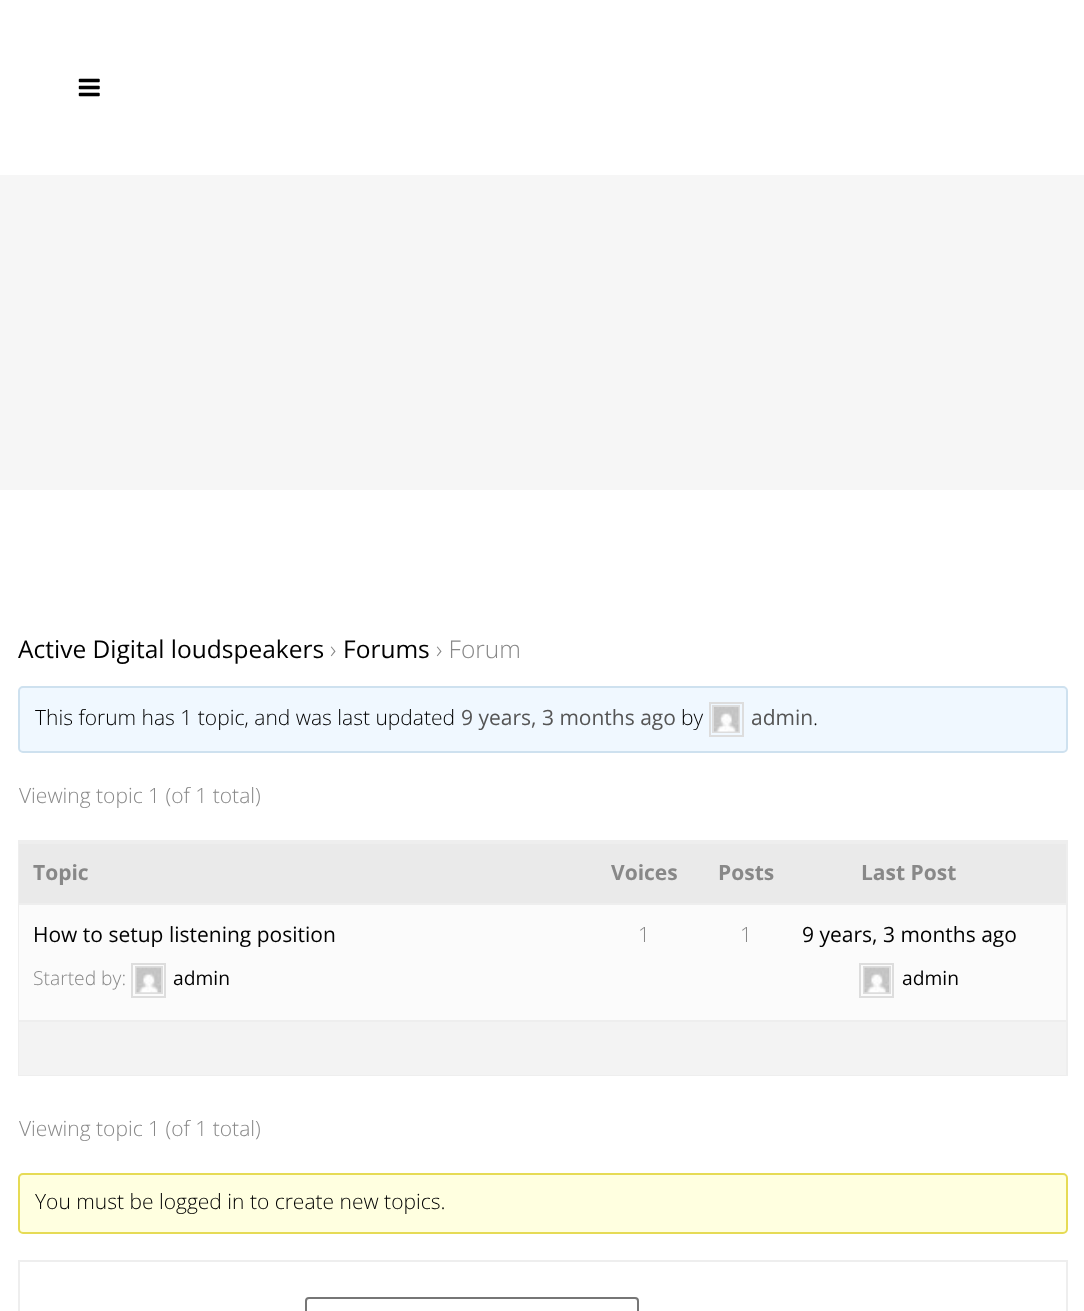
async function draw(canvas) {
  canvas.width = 1084;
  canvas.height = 1311;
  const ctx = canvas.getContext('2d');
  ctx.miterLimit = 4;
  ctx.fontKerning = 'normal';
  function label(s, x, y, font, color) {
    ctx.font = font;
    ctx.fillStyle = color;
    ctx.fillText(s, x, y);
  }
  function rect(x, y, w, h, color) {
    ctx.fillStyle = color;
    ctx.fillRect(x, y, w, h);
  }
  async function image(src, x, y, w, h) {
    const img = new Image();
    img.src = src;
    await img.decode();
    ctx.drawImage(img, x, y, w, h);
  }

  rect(0, 0, 1084, 1311, '#fff');
  await image('assets/img1.png', 78, 78, 22, 19);
  rect(0, 175, 1084, 315, '#f6f6f6');
  label('Active Digital loudspeakers', 18, 658, '24.5px Open Sans', '#000');
  label('›', 330, 658, '300 24.5px Open Sans', '#888');
  label('Forums', 343, 658, '24.5px Open Sans', '#000');
  label('› Forum', 436, 658, '300 24.5px Open Sans', '#888');
  ctx.fillStyle = '#f0f8ff';
  ctx.beginPath();
  ctx.roundRect(19, 687, 1048, 65, 4);
  ctx.fill();
  ctx.strokeStyle = '#cee1ef';
  ctx.lineWidth = 2;
  ctx.stroke();
  label('This forum has 1 topic, and was last updated', 35, 725, '300 21px Open Sans', '#000');
  label('9 years, 3 months ago', 461, 725, '21px Open Sans', '#555');
  label('by', 681, 725, '300 21px Open Sans', '#000');
  ctx.strokeStyle = '#ddd';
  ctx.strokeRect(710, 703, 33, 33);
  ctx.strokeRect(713, 706, 26, 26);
  await image('assets/img2.png', 714, 707, 25, 25);
  label('admin', 751, 725, '21px Open Sans', '#555');
  label('.', 813, 725, '300 21px Open Sans', '#000');
  label('Viewing topic 1 (of 1 total)', 19, 803, '300 21px Open Sans', '#888');
  ctx.strokeStyle = '#eee';
  ctx.strokeRect(19, 841, 1048, 234);
  rect(19, 844, 1047, 59, '#eaeaea');
  rect(19, 842, 1047, 2, '#eee');
  label('Topic', 33, 880, 'bold 21px Open Sans', '#888');
  label('Voices', 611, 880, 'bold 21px Open Sans', '#888');
  label('Posts', 718, 880, 'bold 21px Open Sans', '#888');
  label('Last Post', 861, 880, 'bold 21px Open Sans', '#888');
  rect(19, 905, 1047, 115, '#fbfbfb');
  rect(19, 903, 1047, 2, '#eee');
  label('How to setup listening position', 33, 942, '21px Open Sans', '#000');
  label('Started by:', 33, 985, '300 19.25px Open Sans', '#888');
  ctx.strokeStyle = '#ddd';
  ctx.strokeRect(132, 964, 33, 33);
  ctx.strokeRect(136, 967, 26, 26);
  await image('assets/img3.png', 136, 967, 25, 26);
  label('admin', 173, 985, '19.25px Open Sans', '#000');
  label('1', 638, 942, '300 21px Open Sans', '#888');
  label('1', 740, 942, '300 21px Open Sans', '#888');
  label('9 years, 3 months ago', 802, 942, '21px Open Sans', '#000');
  ctx.strokeRect(860, 964, 33, 33);
  ctx.strokeRect(864, 967, 26, 26);
  await image('assets/img3.png', 864, 967, 25, 26);
  label('admin', 902, 985, '19.25px Open Sans', '#000');
  rect(19, 1022, 1047, 53, '#f3f3f3');
  rect(19, 1020, 1047, 2, '#eee');
  label('Viewing topic 1 (of 1 total)', 19, 1136, '300 21px Open Sans', '#888');
  ctx.fillStyle = '#ffffe0';
  ctx.beginPath();
  ctx.roundRect(19, 1174, 1048, 59, 4);
  ctx.fill();
  ctx.strokeStyle = '#e6db55';
  ctx.stroke();
  label('You must be logged in to create new topics.', 35, 1209, '300 21px Open Sans', '#000');
  ctx.strokeStyle = '#eee';
  ctx.strokeRect(19, 1261, 1048, 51);
  ctx.beginPath();
  ctx.roundRect(306, 1298, 332, 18, 3);
  ctx.strokeStyle = '#767676';
  ctx.stroke();
}

draw(document.querySelector('canvas'));
